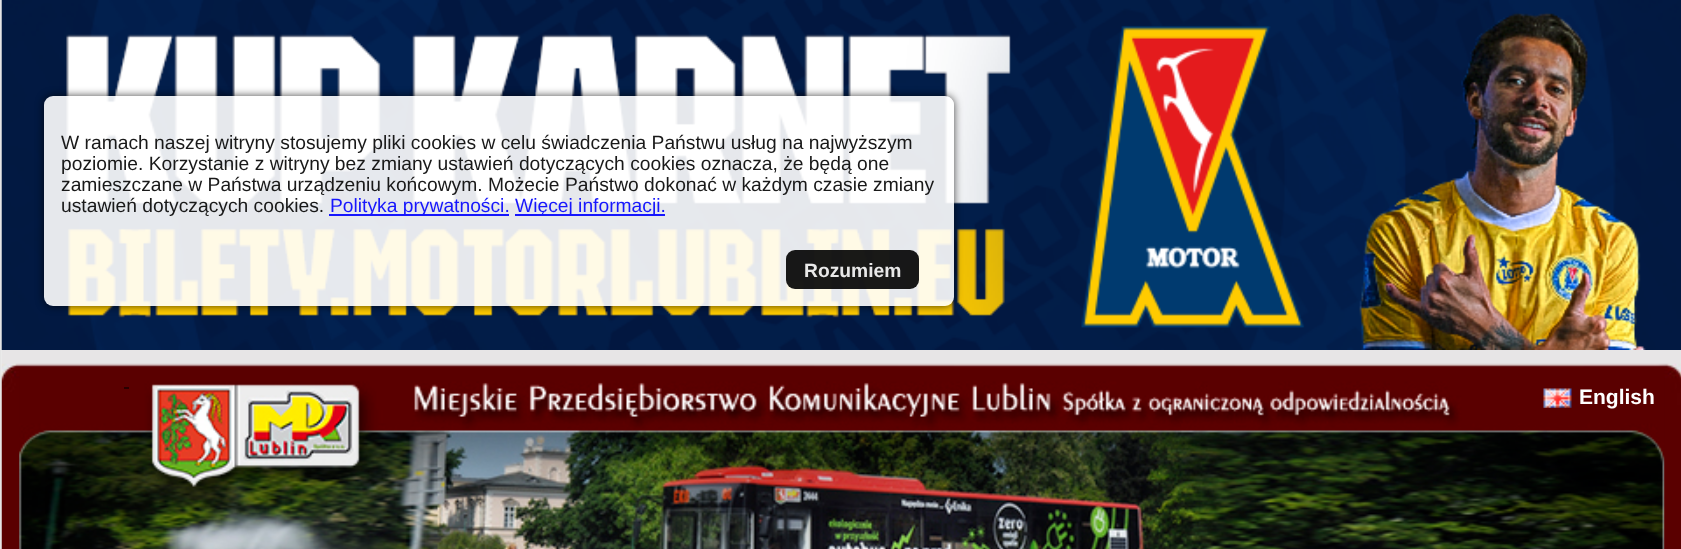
async function draw(canvas) {
  canvas.width = 1681;
  canvas.height = 549;
  const ctx = canvas.getContext('2d');
  ctx.miterLimit = 4;
  ctx.fontKerning = 'normal';
  function label(s, x, y, font, color) {
    ctx.font = font;
    ctx.fillStyle = color;
    ctx.fillText(s, x, y);
  }
  function rect(x, y, w, h, color) {
    ctx.fillStyle = color;
    ctx.fillRect(x, y, w, h);
  }
  function roundedRect(x, y, w, h, r, color) {
    ctx.fillStyle = color;
    ctx.beginPath();
    ctx.roundRect(x, y, w, h, r);
    ctx.fill();
  }
  async function image(src, x, y, w, h) {
    const img = new Image();
    img.src = src;
    await img.decode();
    ctx.drawImage(img, x, y, w, h);
  }
  let path;

  rect(0, 0, 1681, 549, '#e5e5e5');
  await image('assets/img1.png', 1, 0, 1680, 350);
  ctx.save();
  path = new Path2D('M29 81H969V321H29ZM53 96H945C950 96 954 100 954 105V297C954 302 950 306 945 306H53C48 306 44 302 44 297V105C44 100 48 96 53 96Z');
  ctx.clip(path, 'evenodd');
  ctx.fillStyle = '#000000b8';
  ctx.filter = 'blur(4.5px)';
  ctx.beginPath();
  ctx.roundRect(44, 96, 910, 210, 9);
  ctx.fill();
  ctx.filter = 'none';
  ctx.restore();
  roundedRect(44, 96, 910, 210, 9, '#ffffffe6');
  label('W ramach naszej witryny stosujemy pliki cookies w celu świadczenia Państwu usług na najwyższym', 61, 149, '19.25px Liberation Sans', '#191919');
  label('poziomie. Korzystanie z witryny bez zmiany ustawień dotyczących cookies oznacza, że będą one', 61, 170, '19.25px Liberation Sans', '#191919');
  label('zamieszczane w Państwa urządzeniu końcowym. Możecie Państwo dokonać w każdym czasie zmiany', 61, 191, '19.25px Liberation Sans', '#191919');
  label('ustawień dotyczących cookies.', 61, 212, '19.25px Liberation Sans', '#191919');
  rect(329, 214, 180, 2, '#1717fd');
  label('Polityka prywatności.', 330, 212, '19.25px Liberation Sans', '#1717fd');
  rect(515, 214, 150, 2, '#1717fd');
  label('Więcej informacji.', 515, 212, '19.25px Liberation Sans', '#1717fd');
  roundedRect(786, 250, 133, 39, 9, '#000000e6');
  label('Rozumiem', 804, 277, 'bold 19.25px Liberation Sans', '#e8e8e8');
  await image('assets/img2.png', 1, 350, 1, 199);
  await image('assets/img3.png', 1, 350, 1680, 199);
  await image('assets/img4.png', 19, 368, 1646, 181);
  rect(124, 387, 5, 2, '#280000');
  await image('assets/img5.png', 1543, 388, 29, 20);
  label('English', 1579, 404, 'bold 21px Liberation Sans', '#fff');
}

draw(document.querySelector('canvas'));
